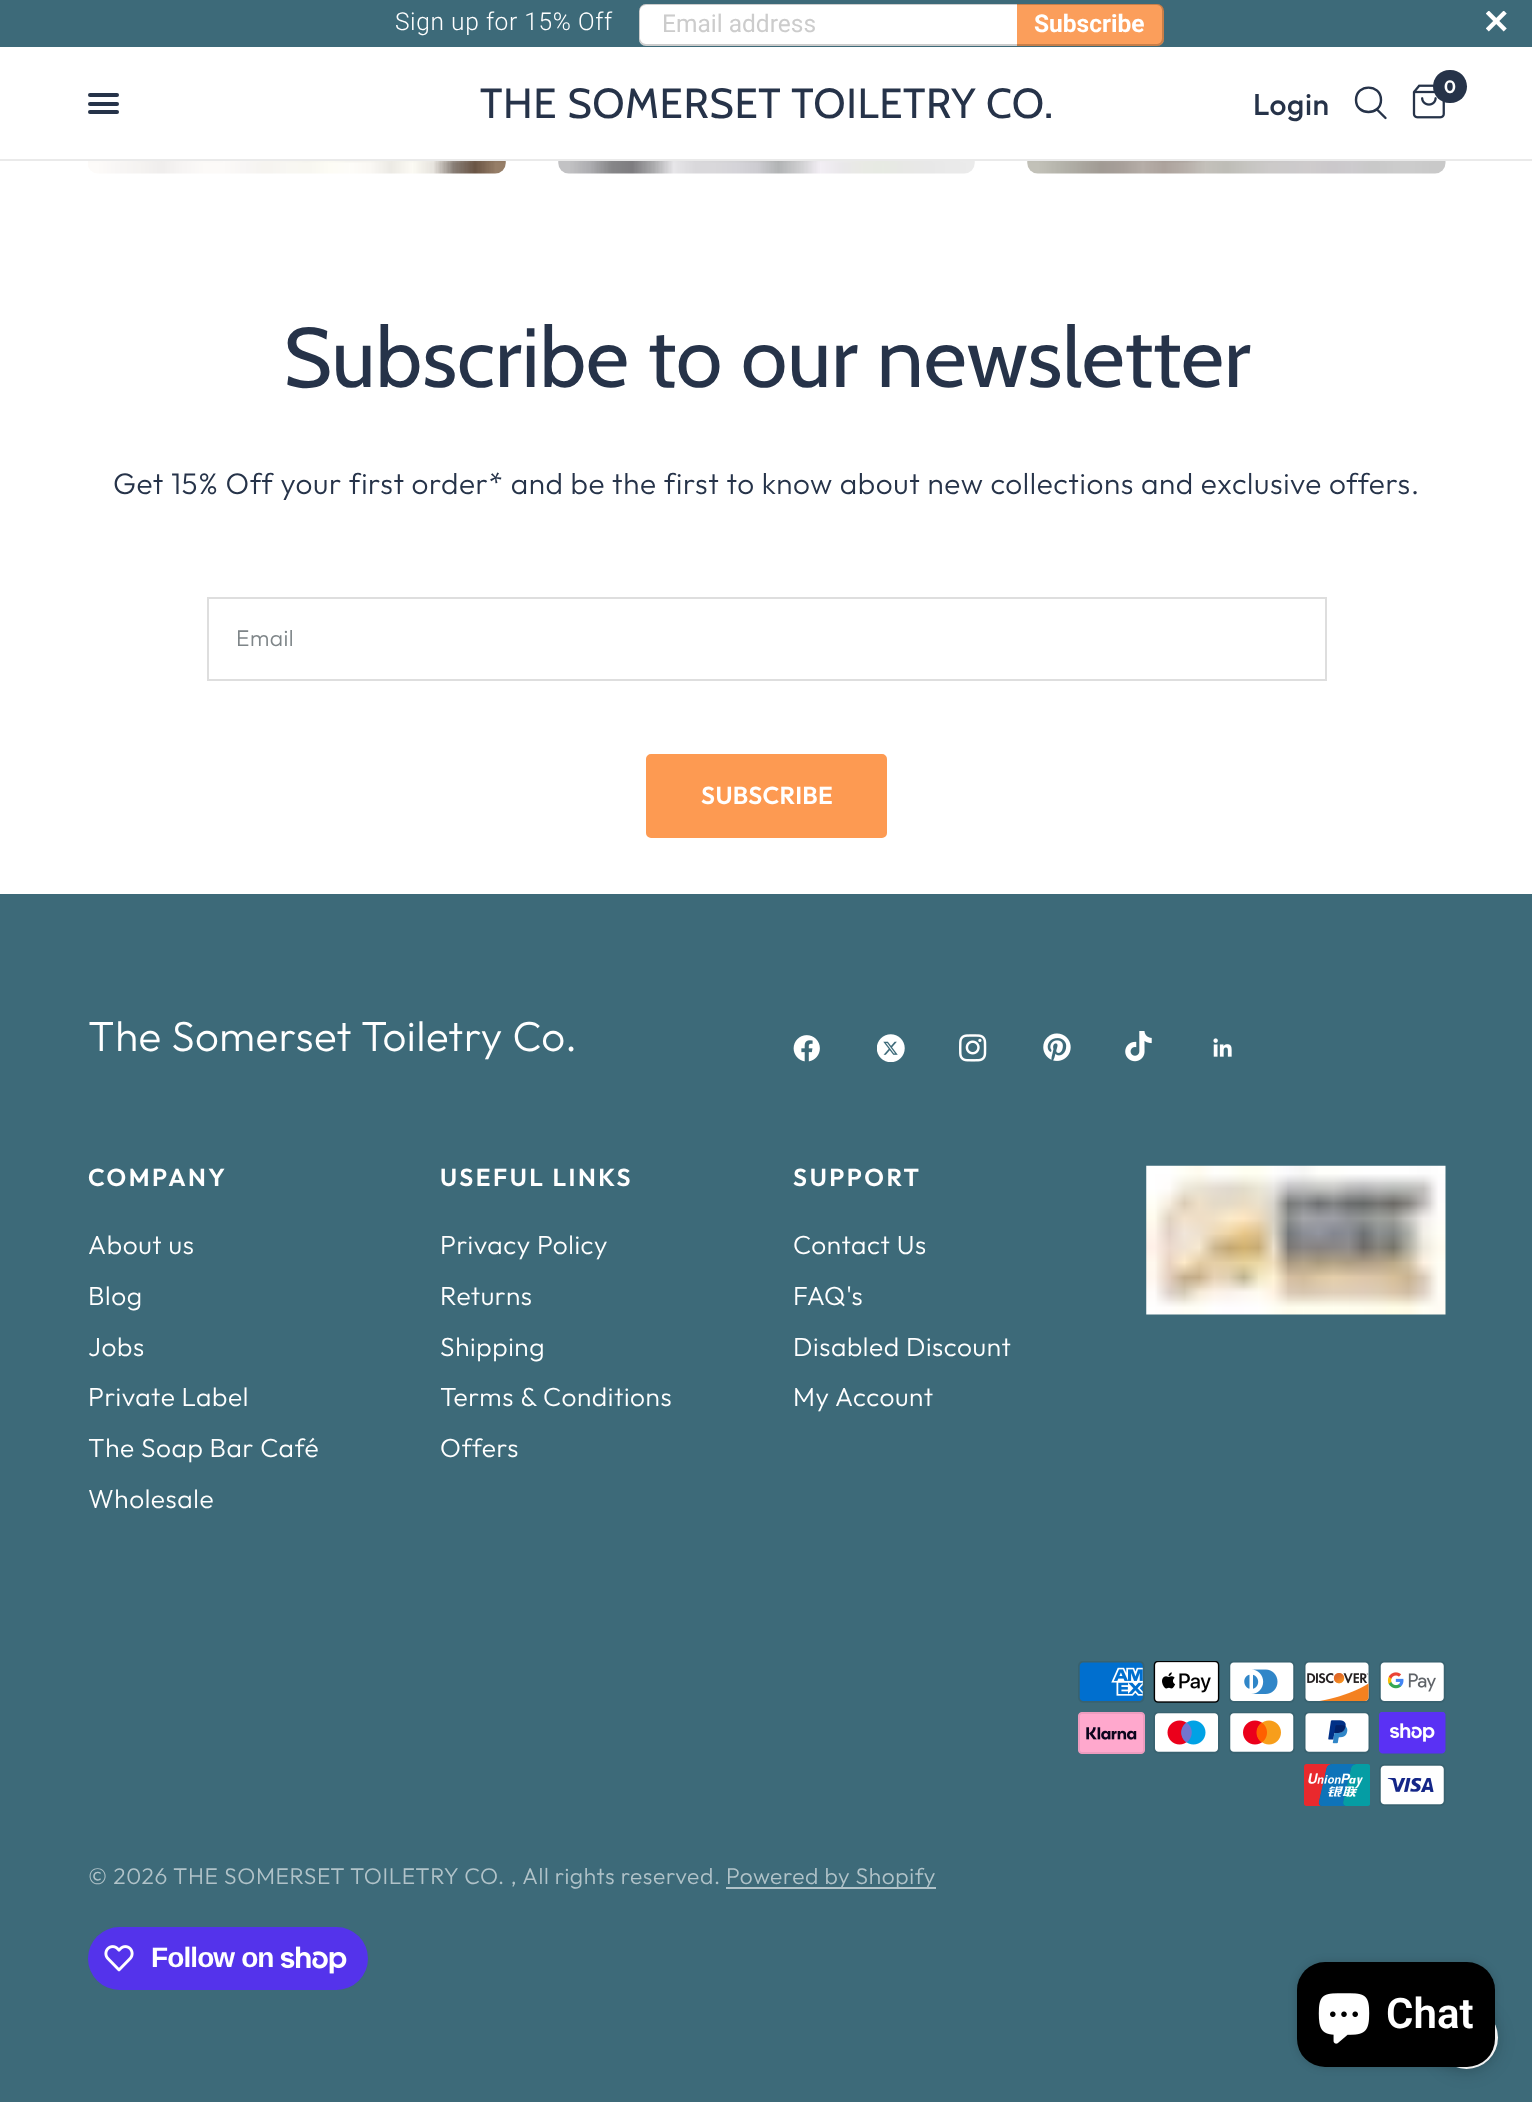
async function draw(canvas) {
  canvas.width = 1532;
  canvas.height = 2102;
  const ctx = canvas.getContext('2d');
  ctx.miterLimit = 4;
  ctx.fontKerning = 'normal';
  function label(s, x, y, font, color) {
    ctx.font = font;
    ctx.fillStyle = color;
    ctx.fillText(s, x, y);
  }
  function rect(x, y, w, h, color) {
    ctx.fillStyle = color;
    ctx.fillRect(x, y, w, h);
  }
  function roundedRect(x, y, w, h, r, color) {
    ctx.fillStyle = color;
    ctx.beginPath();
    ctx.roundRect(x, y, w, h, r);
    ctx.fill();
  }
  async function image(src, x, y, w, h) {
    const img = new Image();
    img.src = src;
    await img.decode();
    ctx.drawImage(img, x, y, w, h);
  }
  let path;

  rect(0, 0, 1532, 2102, '#fff');
  rect(0, 0, 1532, 47, '#3d6a79');
  ctx.letterSpacing = '0.6px';
  label('Sign up for 15% Off', 395, 30, '300 24.5px Roboto', '#fff');
  ctx.beginPath();
  ctx.roundRect(639, 4, 378, 42, [7, 0, 0, 7]);
  ctx.fill();
  ctx.fillStyle = '#00000033';
  path = new Path2D('M646 4H1017V46H646C642 46 639 42 639 38V10C639 7 642 4 646 4ZM646 5H1017V44H646C643 44 640 41 640 38V10C640 8 643 5 646 5Z');
  ctx.fill(path, 'evenodd');
  ctx.letterSpacing = '0px';
  label('Email address', 662, 32, '24.5px Roboto', '#ccc');
  ctx.fillStyle = '#fb9e5b';
  ctx.beginPath();
  ctx.roundRect(1017, 4, 147, 42, [0, 7, 7, 0]);
  ctx.fill();
  ctx.fillStyle = '#00000033';
  path = new Path2D('M1017 4H1157C1161 4 1164 7 1164 10V38C1164 42 1161 46 1157 46H1017ZM1017 5H1157C1160 5 1162 8 1162 10V38C1162 41 1160 44 1157 44H1017Z');
  ctx.fill(path, 'evenodd');
  label('Subscribe', 1034, 32, 'bold 24.5px Roboto', '#fff');
  await image('assets/img1.png', 1486, 11, 21, 21);
  rect(0, 159, 1532, 2, '#eaeaea');
  roundedRect(88, 93, 31, 4, 2, '#263349');
  roundedRect(88, 102, 31, 4, 2, '#263349');
  roundedRect(88, 110, 31, 4, 2, '#263349');
  ctx.letterSpacing = '0.6px';
  label('THE SOMERSET TOILETRY CO.', 480, 118, '42px Cabin', '#263349');
  label('Login', 1253, 115, '500 30px Outfit', '#263349');
  path = new Path2D('M1377 109.5L1385.5 118M1381 100C1381 116 1356 116 1356 100C1356 83.5 1381 83.5 1381 100Z');
  ctx.strokeStyle = '#263349';
  ctx.lineWidth = 2.4;
  ctx.lineCap = 'round';
  ctx.lineJoin = 'round';
  ctx.stroke(path);
  await image('assets/img2.png', 1412, 84, 33, 35);
  roundedRect(1433, 70, 34, 33, 16.5, '#263349');
  label('0', 1444, 93, '600 18px Outfit', '#fff');
  await image('assets/img3.png', 88, 161, 418, 13);
  await image('assets/img4.png', 558, 161, 417, 13);
  await image('assets/img5.png', 1027, 161, 419, 13);
  ctx.letterSpacing = '0px';
  label('Subscribe to our newsletter', 283, 387, '84px Cabin', '#263349');
  ctx.letterSpacing = '0.6px';
  label('Get 15% Off your first order* and be the first to know about new collections and exclusive offers.', 113, 494, '300 29.75px Outfit', '#263349');
  ctx.strokeStyle = '#dedede';
  ctx.lineWidth = 2;
  ctx.lineJoin = 'miter';
  ctx.strokeRect(208, 598, 1118, 82);
  ctx.letterSpacing = '0.5px';
  label('Email', 236, 646, '300 22.75px Outfit', '#7e8588');
  ctx.fillStyle = '#fd9a52';
  ctx.beginPath();
  ctx.roundRect(647, 755, 239, 82, 4);
  ctx.fill();
  ctx.strokeStyle = '#fd9a52';
  ctx.stroke();
  ctx.letterSpacing = '0.25px';
  label('SUBSCRIBE', 701, 804, '600 24.5px Outfit', '#fff');
  rect(0, 894, 1532, 1208, '#3d6a79');
  ctx.letterSpacing = '0.6px';
  label('The Somerset Toiletry Co.', 88, 1051, '300 42px Outfit', '#fff');
  await image('assets/img6.png', 793, 1035, 27, 27);
  await image('assets/img7.png', 877, 1034, 28, 28);
  await image('assets/img8.png', 959, 1034, 28, 28);
  await image('assets/img9.png', 1043, 1033, 28, 28);
  await image('assets/img10.png', 1125, 1031, 27, 31);
  await image('assets/img11.png', 1213, 1038, 19, 19);
  ctx.letterSpacing = '2.5px';
  label('COMPANY', 88, 1186, '600 24.5px Outfit', '#fff');
  ctx.letterSpacing = '0.6px';
  label('About us', 88, 1254, '300 26.25px Outfit', '#fff');
  label('Blog', 88, 1305, '300 26.25px Outfit', '#fff');
  label('Jobs', 88, 1356, '300 26.25px Outfit', '#fff');
  label('Private Label', 88, 1406, '300 26.25px Outfit', '#fff');
  label('The Soap Bar Café', 88, 1457, '300 26.25px Outfit', '#fff');
  label('Wholesale', 88, 1508, '300 26.25px Outfit', '#fff');
  ctx.letterSpacing = '2.5px';
  label('USEFUL LINKS', 440, 1186, '600 24.5px Outfit', '#fff');
  ctx.letterSpacing = '0.6px';
  label('Privacy Policy', 440, 1254, '300 26.25px Outfit', '#fff');
  label('Returns', 440, 1305, '300 26.25px Outfit', '#fff');
  label('Shipping', 440, 1356, '300 26.25px Outfit', '#fff');
  label('Terms & Conditions', 440, 1406, '300 26.25px Outfit', '#fff');
  label('Offers', 440, 1457, '300 26.25px Outfit', '#fff');
  ctx.letterSpacing = '2.5px';
  label('SUPPORT', 793, 1186, '600 24.5px Outfit', '#fff');
  ctx.letterSpacing = '0.6px';
  label('Contact Us', 793, 1254, '300 26.25px Outfit', '#fff');
  label('FAQ\'s', 793, 1305, '300 26.25px Outfit', '#fff');
  label('Disabled Discount', 793, 1356, '300 26.25px Outfit', '#fff');
  label('My Account', 793, 1406, '300 26.25px Outfit', '#fff');
  await image('assets/img12.png', 1146, 1165, 300, 150);
  await image('assets/img13.png', 1078, 1661, 67, 42);
  await image('assets/img14.png', 1153, 1661, 67, 42);
  await image('assets/img15.png', 1229, 1661, 66, 42);
  await image('assets/img16.png', 1304, 1661, 66, 42);
  await image('assets/img17.png', 1379, 1661, 67, 42);
  await image('assets/img18.png', 1078, 1712, 67, 42);
  await image('assets/img19.png', 1153, 1712, 67, 42);
  await image('assets/img20.png', 1229, 1712, 66, 42);
  await image('assets/img21.png', 1304, 1712, 66, 42);
  await image('assets/img22.png', 1379, 1712, 67, 42);
  await image('assets/img23.png', 1304, 1764, 66, 42);
  await image('assets/img24.png', 1379, 1764, 67, 42);
  label('© 2026 THE SOMERSET TOILETRY CO. , All rights reserved.', 88, 1884, '300 22.75px Outfit', '#b1c3c9');
  rect(726, 1887, 210, 2, '#b1c3c9');
  label('Powered by Shopify', 726, 1884, '300 22.75px Outfit', '#b1c3c9');
  roundedRect(88, 1927, 280, 63, 31.5, '#5433eb');
  await image('assets/img25.png', 104, 1945, 30, 27);
  ctx.letterSpacing = '-0.9px';
  label('Follow on', 151, 1967, 'bold 28px Liberation Sans', '#fff');
  await image('assets/img26.png', 280, 1946, 67, 28);
  ctx.fillStyle = '#00000026';
  ctx.filter = 'blur(9px)';
  ctx.beginPath();
  ctx.roundRect(1435, 2009, 63, 63, 31.5);
  ctx.fill();
  ctx.filter = 'none';
  ctx.fillStyle = '#fff';
  ctx.beginPath();
  ctx.arc(1466.5, 2037.5, 31.5, 0, 2 * Math.PI);
  ctx.fill();
  ctx.fillStyle = '#00000026';
  ctx.filter = 'blur(4.5px)';
  ctx.beginPath();
  ctx.roundRect(1297, 1962, 198, 105, 28);
  ctx.fill();
  ctx.filter = 'none';
  roundedRect(1297, 1962, 198, 105, 28, '#000');
  await image('assets/img27.png', 1318, 1993, 52, 51);
  ctx.letterSpacing = '0px';
  label('Chat', 1386, 2028, '600 42px Roboto', '#fff');
}

draw(document.querySelector('canvas'));
